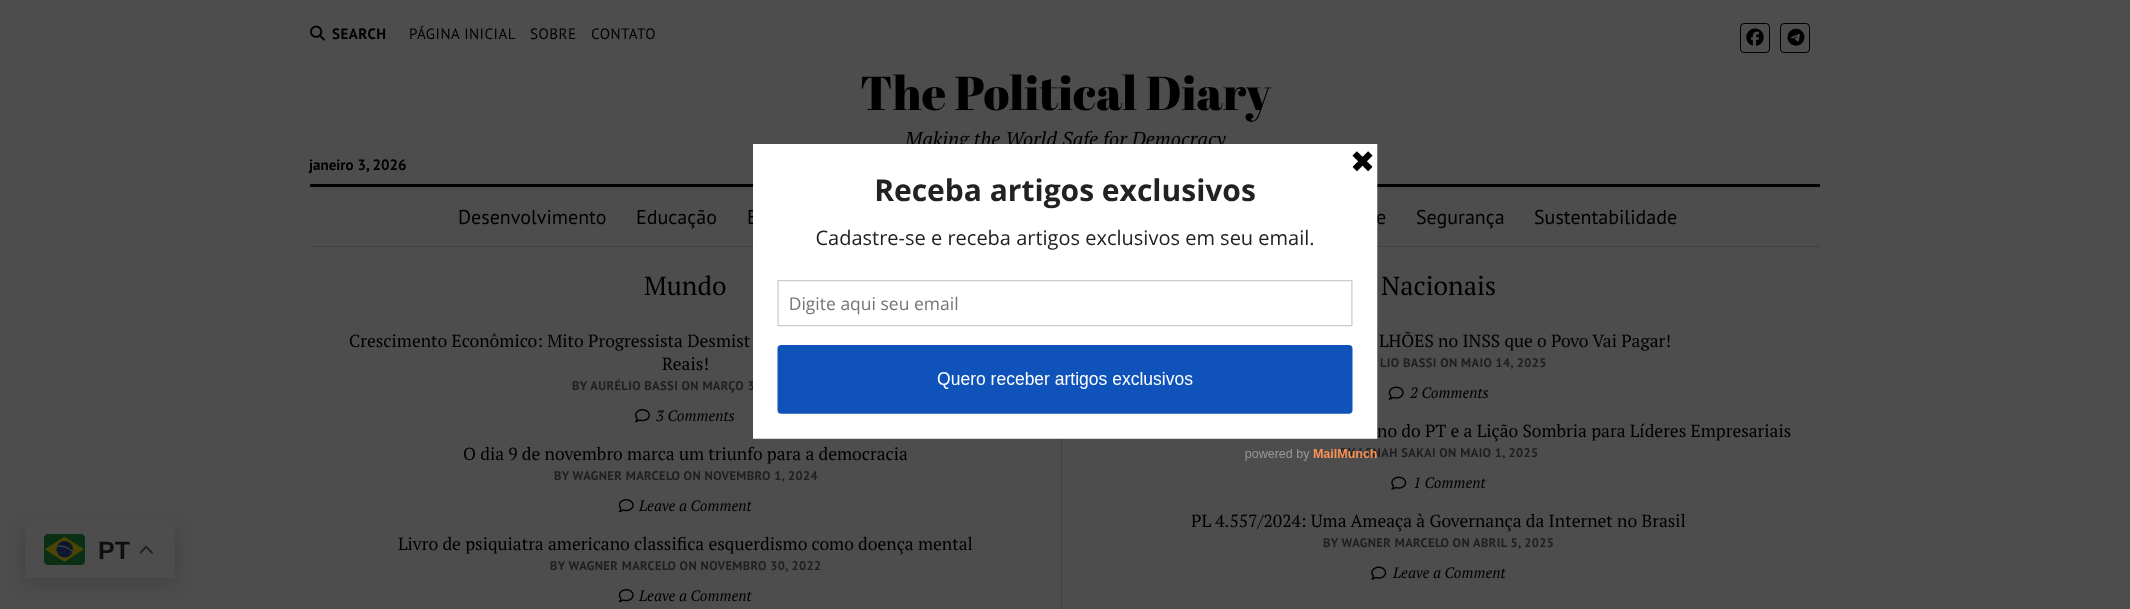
async function draw(canvas) {
  canvas.width = 2130;
  canvas.height = 609;
  const ctx = canvas.getContext('2d');
  ctx.miterLimit = 4;
  ctx.fontKerning = 'normal';
  function label(s, x, y, font, color) {
    ctx.font = font;
    ctx.fillStyle = color;
    ctx.fillText(s, x, y);
  }
  function rect(x, y, w, h, color) {
    ctx.fillStyle = color;
    ctx.fillRect(x, y, w, h);
  }
  function roundedRect(x, y, w, h, r, color) {
    ctx.fillStyle = color;
    ctx.beginPath();
    ctx.roundRect(x, y, w, h, r);
    ctx.fill();
  }
  async function image(src, x, y, w, h) {
    const img = new Image();
    img.src = src;
    await img.decode();
    ctx.drawImage(img, x, y, w, h);
  }

  rect(0, 0, 2130, 609, '#4d4d4d');
  await image('assets/img1.png', 310, 25, 15, 16);
  ctx.letterSpacing = '0.5px';
  label('SEARCH', 332, 39, 'bold 15px PT Sans', '#000');
  label('PÁGINA INICIAL', 409, 39, '15px PT Sans', '#000');
  label('SOBRE', 530, 39, '15px PT Sans', '#000');
  label('CONTATO', 591, 39, '15px PT Sans', '#000');
  ctx.beginPath();
  ctx.roundRect(1740.5, 23.5, 29, 29, 3.5);
  ctx.strokeStyle = '#000';
  ctx.stroke();
  await image('assets/img2.png', 1746, 28, 18, 18);
  ctx.beginPath();
  ctx.roundRect(1780.5, 23.5, 29, 29, 3.5);
  ctx.stroke();
  await image('assets/img3.png', 1787, 28, 18, 18);
  ctx.letterSpacing = '0px';
  label('The Political Diary', 860, 110, '47.5px Abril Fatface', '#000');
  label('Making the World Safe for Democracy', 905, 146, 'italic 20px PT Serif', '#000');
  label('janeiro 3, 2026', 309, 170, 'bold 15px PT Sans', '#000');
  rect(310, 184, 1510, 3, '#000');
  rect(310, 246, 1510, 1, '#424242');
  label('Desenvolvimento', 458, 224, '20px PT Sans', '#000');
  label('Educação', 636, 224, '20px PT Sans', '#000');
  label('E', 747, 224, '20px PT Sans', '#000');
  label('e', 1376, 224, '20px PT Sans', '#000');
  label('Segurança', 1416, 224, '20px PT Sans', '#000');
  label('Sustentabilidade', 1534, 224, '20px PT Sans', '#000');
  rect(1061, 438, 1, 171, '#424242');
  label('Mundo', 644, 295, '26.25px PT Serif', '#000');
  label('Crescimento Econômico: Mito Progressista Desmist', 349, 347, '17.5px PT Serif', '#000');
  label('Reais!', 662, 370, '17.5px PT Serif', '#000');
  ctx.letterSpacing = '0.4px';
  label('BY AURÉLIO BASSI ON MARÇO 3', 572, 390, 'bold 12.5px PT Sans', '#1f1f1f');
  await image('assets/img4.png', 635, 409, 15, 14);
  ctx.letterSpacing = '0px';
  label('3 Comments', 656, 421, 'italic 15px PT Serif', '#000');
  label('O dia 9 de novembro marca um triunfo para a democracia', 463, 460, '17.5px PT Serif', '#000');
  ctx.letterSpacing = '0.4px';
  label('BY WAGNER MARCELO ON NOVEMBRO 1, 2024', 554, 480, 'bold 12.5px PT Sans', '#1f1f1f');
  await image('assets/img5.png', 618, 499, 16, 14);
  ctx.letterSpacing = '0px';
  label('Leave a Comment', 639, 511, 'italic 15px PT Serif', '#000');
  label('Livro de psiquiatra americano classifica esquerdismo como doença mental', 398, 550, '17.5px PT Serif', '#000');
  ctx.letterSpacing = '0.4px';
  label('BY WAGNER MARCELO ON NOVEMBRO 30, 2022', 550, 570, 'bold 12.5px PT Sans', '#1f1f1f');
  await image('assets/img5.png', 618, 589, 16, 14);
  ctx.letterSpacing = '0px';
  label('Leave a Comment', 639, 601, 'italic 15px PT Serif', '#000');
  label('Nacionais', 1381, 295, '26.25px PT Serif', '#000');
  label('LHÕES no INSS que o Povo Vai Pagar!', 1379, 347, '17.5px PT Serif', '#000');
  ctx.letterSpacing = '0.4px';
  label('LIO BASSI ON MAIO 14, 2025', 1380, 367, 'bold 12.5px PT Sans', '#1f1f1f');
  await image('assets/img6.png', 1388, 386, 16, 14);
  ctx.letterSpacing = '0px';
  label('2 Comments', 1410, 398, 'italic 15px PT Serif', '#000');
  label('no do PT e a Lição Sombria para Líderes Empresariais', 1377, 437, '17.5px PT Serif', '#000');
  ctx.letterSpacing = '0.4px';
  label('BY LENAH SAKAI ON MAIO 1, 2025', 1340, 457, 'bold 12.5px PT Sans', '#1f1f1f');
  await image('assets/img7.png', 1391, 476, 16, 14);
  ctx.letterSpacing = '0px';
  label('1 Comment', 1413, 488, 'italic 15px PT Serif', '#000');
  label('PL 4.557/2024: Uma Ameaça à Governança da Internet no Brasil', 1191, 527, '17.5px PT Serif', '#000');
  ctx.letterSpacing = '0.4px';
  label('BY WAGNER MARCELO ON ABRIL 5, 2025', 1323, 547, 'bold 12.5px PT Sans', '#1f1f1f');
  await image('assets/img7.png', 1371, 566, 16, 14);
  ctx.letterSpacing = '0px';
  label('Leave a Comment', 1393, 578, 'italic 15px PT Serif', '#000');
  await image('assets/img8.png', 753, 144, 625, 317);
  ctx.fillStyle = '#00000026';
  ctx.filter = 'blur(9.5px)';
  ctx.beginPath();
  ctx.roundRect(25, 528, 150, 56, 2.5);
  ctx.fill();
  ctx.filter = 'none';
  roundedRect(25, 521, 150, 57, 2.5, '#4d4d4d');
  await image('assets/img9.png', 44, 534, 41, 31);
  label('PT', 98, 559, 'bold 25px Liberation Sans', '#0f0f0f');
  await image('assets/img10.png', 140, 545, 13, 9);
}

draw(document.querySelector('canvas'));
